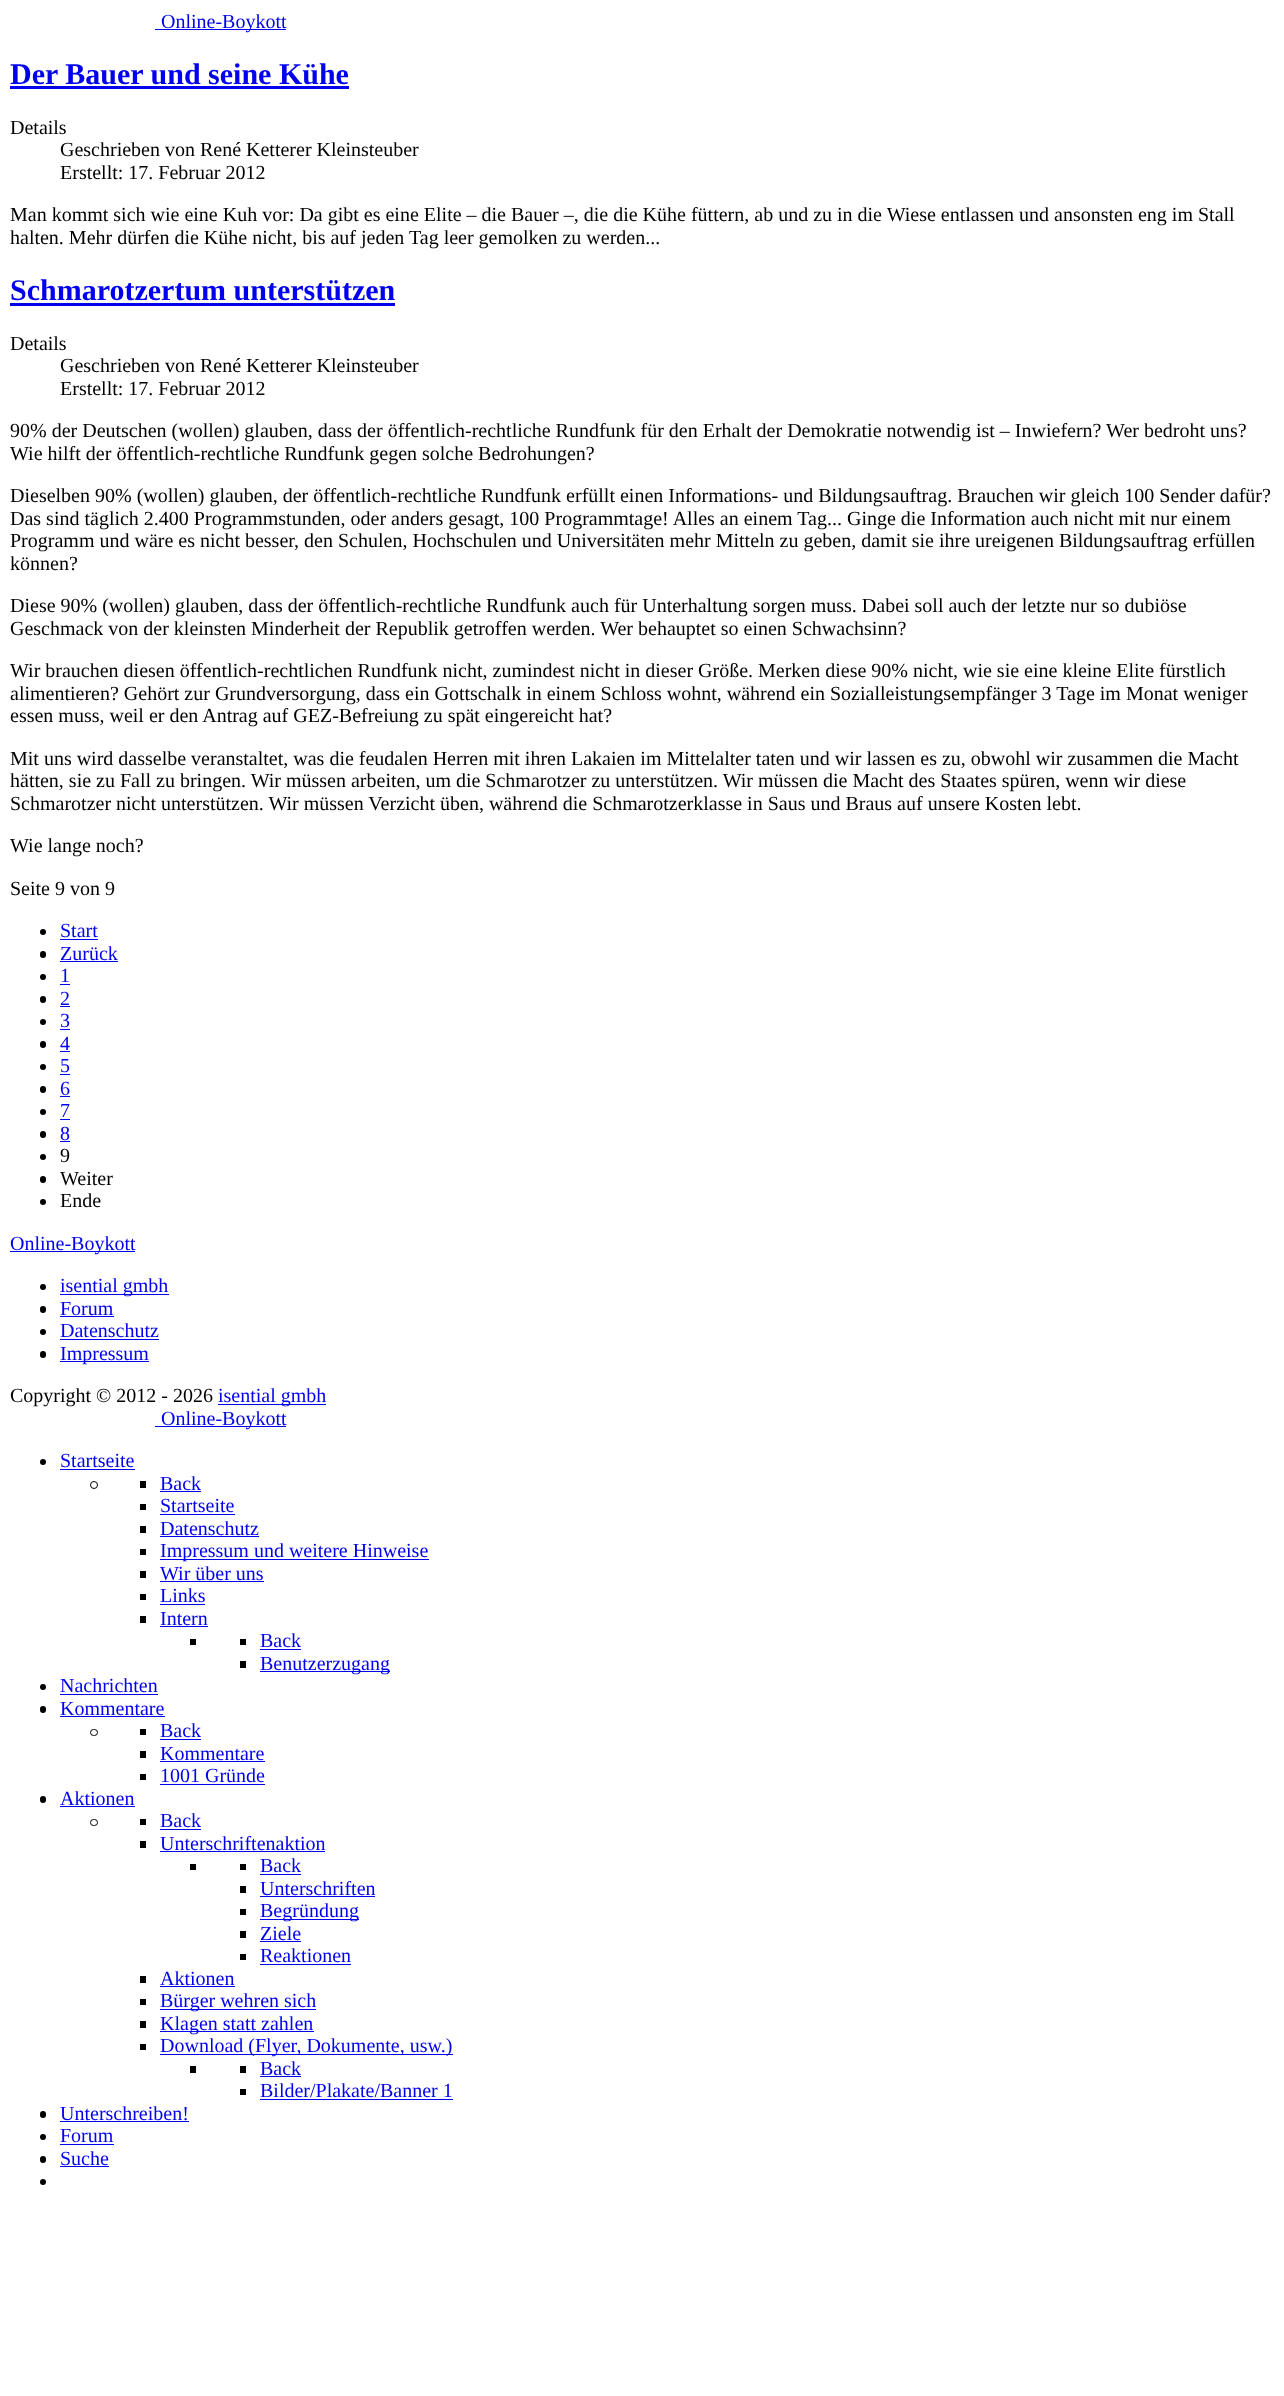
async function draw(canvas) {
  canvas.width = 1284;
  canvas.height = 2396;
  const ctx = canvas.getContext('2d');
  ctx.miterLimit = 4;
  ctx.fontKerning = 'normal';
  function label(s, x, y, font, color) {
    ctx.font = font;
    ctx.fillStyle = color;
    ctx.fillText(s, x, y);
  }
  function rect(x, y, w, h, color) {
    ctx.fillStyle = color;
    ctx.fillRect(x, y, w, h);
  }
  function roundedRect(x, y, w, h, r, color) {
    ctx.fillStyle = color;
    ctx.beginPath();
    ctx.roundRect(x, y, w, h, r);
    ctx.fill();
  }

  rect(0, 0, 1284, 2396, '#fff');
  rect(155, 29, 131, 1, '#00e');
  label('Online-Boykott', 161, 28, '20px Liberation Serif', '#00e');
  label('Der Bauer und seine Kühe', 10, 84, 'bold 30px Liberation Serif', '#00e');
  rect(10, 86, 339, 3, '#00e');
  label('Details', 10, 134, '20px Liberation Serif', '#000');
  label('Geschrieben von René Ketterer Kleinsteuber', 60, 156, '20px Liberation Serif', '#000');
  label('Erstellt: 17. Februar 2012', 60, 179, '20px Liberation Serif', '#000');
  label('Man kommt sich wie eine Kuh vor: Da gibt es eine Elite – die Bauer –, die die Kühe füttern, ab und zu in die Wiese entlassen und ansonsten eng im Stall', 10, 221, '20px Liberation Serif', '#000');
  label('halten. Mehr dürfen die Kühe nicht, bis auf jeden Tag leer gemolken zu werden...', 10, 244, '20px Liberation Serif', '#000');
  label('Schmarotzertum unterstützen', 10, 300, 'bold 30px Liberation Serif', '#00e');
  rect(10, 303, 385, 3, '#00e');
  label('Details', 10, 350, '20px Liberation Serif', '#000');
  label('Geschrieben von René Ketterer Kleinsteuber', 60, 372, '20px Liberation Serif', '#000');
  label('Erstellt: 17. Februar 2012', 60, 395, '20px Liberation Serif', '#000');
  label('90% der Deutschen (wollen) glauben, dass der öffentlich-rechtliche Rundfunk für den Erhalt der Demokratie notwendig ist – Inwiefern? Wer bedroht uns?', 10, 437, '20px Liberation Serif', '#000');
  label('Wie hilft der öffentlich-rechtliche Rundfunk gegen solche Bedrohungen?', 10, 460, '20px Liberation Serif', '#000');
  label('Dieselben 90% (wollen) glauben, der öffentlich-rechtliche Rundfunk erfüllt einen Informations- und Bildungsauftrag. Brauchen wir gleich 100 Sender dafür?', 10, 502, '20px Liberation Serif', '#000');
  label('Das sind täglich 2.400 Programmstunden, oder anders gesagt, 100 Programmtage! Alles an einem Tag... Ginge die Information auch nicht mit nur einem', 10, 525, '20px Liberation Serif', '#000');
  label('Programm und wäre es nicht besser, den Schulen, Hochschulen und Universitäten mehr Mitteln zu geben, damit sie ihre ureigenen Bildungsauftrag erfüllen', 10, 547, '20px Liberation Serif', '#000');
  label('können?', 10, 570, '20px Liberation Serif', '#000');
  label('Diese 90% (wollen) glauben, dass der öffentlich-rechtliche Rundfunk auch für Unterhaltung sorgen muss. Dabei soll auch der letzte nur so dubiöse', 10, 612, '20px Liberation Serif', '#000');
  label('Geschmack von der kleinsten Minderheit der Republik getroffen werden. Wer behauptet so einen Schwachsinn?', 10, 635, '20px Liberation Serif', '#000');
  label('Wir brauchen diesen öffentlich-rechtlichen Rundfunk nicht, zumindest nicht in dieser Größe. Merken diese 90% nicht, wie sie eine kleine Elite fürstlich', 10, 677, '20px Liberation Serif', '#000');
  label('alimentieren? Gehört zur Grundversorgung, dass ein Gottschalk in einem Schloss wohnt, während ein Sozialleistungsempfänger 3 Tage im Monat weniger', 10, 700, '20px Liberation Serif', '#000');
  label('essen muss, weil er den Antrag auf GEZ-Befreiung zu spät eingereicht hat?', 10, 722, '20px Liberation Serif', '#000');
  label('Mit uns wird dasselbe veranstaltet, was die feudalen Herren mit ihren Lakaien im Mittelalter taten und wir lassen es zu, obwohl wir zusammen die Macht', 10, 765, '20px Liberation Serif', '#000');
  label('hätten, sie zu Fall zu bringen. Wir müssen arbeiten, um die Schmarotzer zu unterstützen. Wir müssen die Macht des Staates spüren, wenn wir diese', 10, 787, '20px Liberation Serif', '#000');
  label('Schmarotzer nicht unterstützen. Wir müssen Verzicht üben, während die Schmarotzerklasse in Saus und Braus auf unsere Kosten lebt.', 10, 810, '20px Liberation Serif', '#000');
  label('Wie lange noch?', 10, 852, '20px Liberation Serif', '#000');
  label('Seite 9 von 9', 10, 895, '20px Liberation Serif', '#000');
  ctx.beginPath();
  ctx.arc(43, 932, 3, 0, 2 * Math.PI);
  ctx.fill();
  label('Start', 60, 937, '20px Liberation Serif', '#00e');
  rect(60, 939, 38, 1, '#00e');
  roundedRect(40, 951, 6, 7, 3, '#000');
  label('Zurück', 60, 960, '20px Liberation Serif', '#00e');
  rect(60, 961, 58, 1, '#00e');
  ctx.fillStyle = '#000';
  ctx.beginPath();
  ctx.arc(43, 977, 3, 0, 2 * Math.PI);
  ctx.fill();
  label('1', 60, 982, '20px Liberation Serif', '#00e');
  rect(60, 984, 10, 1, '#00e');
  roundedRect(40, 996, 6, 7, 3, '#000');
  label('2', 60, 1005, '20px Liberation Serif', '#00e');
  rect(60, 1006, 10, 1, '#00e');
  ctx.fillStyle = '#000';
  ctx.beginPath();
  ctx.arc(43, 1022, 3, 0, 2 * Math.PI);
  ctx.fill();
  label('3', 60, 1027, '20px Liberation Serif', '#00e');
  rect(60, 1029, 10, 1, '#00e');
  roundedRect(40, 1041, 6, 7, 3, '#000');
  label('4', 60, 1050, '20px Liberation Serif', '#00e');
  rect(60, 1051, 10, 1, '#00e');
  ctx.fillStyle = '#000';
  ctx.beginPath();
  ctx.arc(43, 1067, 3, 0, 2 * Math.PI);
  ctx.fill();
  label('5', 60, 1072, '20px Liberation Serif', '#00e');
  rect(60, 1074, 10, 1, '#00e');
  roundedRect(40, 1086, 6, 7, 3, '#000');
  label('6', 60, 1095, '20px Liberation Serif', '#00e');
  rect(60, 1096, 10, 1, '#00e');
  ctx.fillStyle = '#000';
  ctx.beginPath();
  ctx.arc(43, 1112, 3, 0, 2 * Math.PI);
  ctx.fill();
  label('7', 60, 1117, '20px Liberation Serif', '#00e');
  rect(60, 1119, 10, 1, '#00e');
  roundedRect(40, 1131, 6, 7, 3, '#000');
  label('8', 60, 1140, '20px Liberation Serif', '#00e');
  rect(60, 1141, 10, 1, '#00e');
  ctx.fillStyle = '#000';
  ctx.beginPath();
  ctx.arc(43, 1157, 3, 0, 2 * Math.PI);
  ctx.fill();
  label('9', 60, 1162, '20px Liberation Serif', '#000');
  roundedRect(40, 1176, 6, 7, 3, '#000');
  label('Weiter', 60, 1185, '20px Liberation Serif', '#000');
  ctx.beginPath();
  ctx.arc(43, 1202, 3, 0, 2 * Math.PI);
  ctx.fill();
  label('Ende', 60, 1207, '20px Liberation Serif', '#000');
  rect(10, 1251, 125, 1, '#00e');
  label('Online-Boykott', 10, 1250, '20px Liberation Serif', '#00e');
  ctx.fillStyle = '#000';
  ctx.beginPath();
  ctx.arc(43, 1287, 3, 0, 2 * Math.PI);
  ctx.fill();
  rect(60, 1294, 109, 1, '#00e');
  label('isential gmbh', 60, 1292, '20px Liberation Serif', '#00e');
  roundedRect(40, 1306, 6, 7, 3, '#000');
  label('Forum', 60, 1315, '20px Liberation Serif', '#00e');
  rect(60, 1316, 54, 1, '#00e');
  ctx.fillStyle = '#000';
  ctx.beginPath();
  ctx.arc(43, 1332, 3, 0, 2 * Math.PI);
  ctx.fill();
  label('Datenschutz', 60, 1337, '20px Liberation Serif', '#00e');
  rect(60, 1339, 99, 1, '#00e');
  roundedRect(40, 1351, 6, 7, 3, '#000');
  rect(60, 1361, 89, 1, '#00e');
  label('Impressum', 60, 1360, '20px Liberation Serif', '#00e');
  label('Copyright © 2012 - 2026', 10, 1402, '20px Liberation Serif', '#000');
  rect(218, 1404, 108, 1, '#00e');
  label('isential gmbh', 218, 1402, '20px Liberation Serif', '#00e');
  rect(155, 1426, 131, 1, '#00e');
  label('Online-Boykott', 161, 1425, '20px Liberation Serif', '#00e');
  ctx.fillStyle = '#000';
  ctx.beginPath();
  ctx.arc(43, 1462, 3, 0, 2 * Math.PI);
  ctx.fill();
  label('Startseite', 60, 1467, '20px Liberation Serif', '#00e');
  rect(60, 1469, 75, 1, '#00e');
  ctx.beginPath();
  ctx.arc(94, 1485, 3.5, 0, 2 * Math.PI);
  ctx.strokeStyle = '#000';
  ctx.stroke();
  rect(140, 1481, 6, 7, '#000');
  label('Back', 160, 1490, '20px Liberation Serif', '#00e');
  rect(160, 1491, 41, 1, '#00e');
  rect(140, 1504, 6, 6, '#000');
  label('Startseite', 160, 1512, '20px Liberation Serif', '#00e');
  rect(160, 1514, 75, 1, '#00e');
  rect(140, 1526, 6, 7, '#000');
  label('Datenschutz', 160, 1535, '20px Liberation Serif', '#00e');
  rect(160, 1536, 99, 1, '#00e');
  rect(140, 1549, 6, 6, '#000');
  rect(160, 1559, 269, 1, '#00e');
  label('Impressum und weitere Hinweise', 160, 1557, '20px Liberation Serif', '#00e');
  rect(140, 1571, 6, 7, '#000');
  label('Wir über uns', 160, 1580, '20px Liberation Serif', '#00e');
  rect(160, 1581, 104, 1, '#00e');
  rect(140, 1594, 6, 6, '#000');
  label('Links', 160, 1602, '20px Liberation Serif', '#00e');
  rect(160, 1604, 45, 1, '#00e');
  rect(140, 1616, 6, 7, '#000');
  label('Intern', 160, 1625, '20px Liberation Serif', '#00e');
  rect(160, 1626, 48, 1, '#00e');
  rect(190, 1639, 6, 6, '#000');
  rect(240, 1639, 6, 6, '#000');
  label('Back', 260, 1647, '20px Liberation Serif', '#00e');
  rect(260, 1649, 41, 1, '#00e');
  rect(240, 1661, 6, 7, '#000');
  rect(260, 1671, 130, 1, '#00e');
  label('Benutzerzugang', 260, 1670, '20px Liberation Serif', '#00e');
  ctx.fillStyle = '#000';
  ctx.beginPath();
  ctx.arc(43, 1687, 3, 0, 2 * Math.PI);
  ctx.fill();
  label('Nachrichten', 60, 1692, '20px Liberation Serif', '#00e');
  rect(60, 1694, 98, 1, '#00e');
  roundedRect(40, 1706, 6, 7, 3, '#000');
  label('Kommentare', 60, 1715, '20px Liberation Serif', '#00e');
  rect(60, 1716, 105, 1, '#00e');
  ctx.beginPath();
  ctx.roundRect(90.5, 1729.5, 7, 6, 3);
  ctx.stroke();
  rect(140, 1729, 6, 6, '#000');
  label('Back', 160, 1737, '20px Liberation Serif', '#00e');
  rect(160, 1739, 41, 1, '#00e');
  rect(140, 1751, 6, 7, '#000');
  label('Kommentare', 160, 1760, '20px Liberation Serif', '#00e');
  rect(160, 1761, 105, 1, '#00e');
  rect(140, 1774, 6, 6, '#000');
  label('1001 Gründe', 160, 1782, '20px Liberation Serif', '#00e');
  rect(160, 1784, 105, 1, '#00e');
  roundedRect(40, 1796, 6, 7, 3, '#000');
  label('Aktionen', 60, 1805, '20px Liberation Serif', '#00e');
  rect(60, 1806, 75, 1, '#00e');
  ctx.beginPath();
  ctx.roundRect(90.5, 1819.5, 7, 6, 3);
  ctx.stroke();
  rect(140, 1819, 6, 6, '#000');
  label('Back', 160, 1827, '20px Liberation Serif', '#00e');
  rect(160, 1829, 41, 1, '#00e');
  rect(140, 1841, 6, 7, '#000');
  label('Unterschriftenaktion', 160, 1850, '20px Liberation Serif', '#00e');
  rect(160, 1851, 165, 1, '#00e');
  rect(190, 1864, 6, 6, '#000');
  rect(240, 1864, 6, 6, '#000');
  label('Back', 260, 1872, '20px Liberation Serif', '#00e');
  rect(260, 1874, 41, 1, '#00e');
  rect(240, 1886, 6, 7, '#000');
  label('Unterschriften', 260, 1895, '20px Liberation Serif', '#00e');
  rect(260, 1896, 115, 1, '#00e');
  rect(240, 1909, 6, 6, '#000');
  rect(260, 1919, 99, 1, '#00e');
  label('Begründung', 260, 1917, '20px Liberation Serif', '#00e');
  rect(240, 1931, 6, 7, '#000');
  label('Ziele', 260, 1940, '20px Liberation Serif', '#00e');
  rect(260, 1941, 41, 1, '#00e');
  rect(240, 1954, 6, 6, '#000');
  label('Reaktionen', 260, 1962, '20px Liberation Serif', '#00e');
  rect(260, 1964, 91, 1, '#00e');
  rect(140, 1976, 6, 7, '#000');
  label('Aktionen', 160, 1985, '20px Liberation Serif', '#00e');
  rect(160, 1986, 75, 1, '#00e');
  rect(140, 1999, 6, 6, '#000');
  rect(160, 2009, 156, 1, '#00e');
  label('Bürger wehren sich', 160, 2007, '20px Liberation Serif', '#00e');
  rect(140, 2021, 6, 7, '#000');
  rect(160, 2031, 154, 1, '#00e');
  label('Klagen statt zahlen', 160, 2030, '20px Liberation Serif', '#00e');
  rect(140, 2044, 6, 6, '#000');
  rect(160, 2054, 293, 1, '#00e');
  label('Download (Flyer, Dokumente, usw.)', 160, 2052, '20px Liberation Serif', '#00e');
  rect(190, 2066, 6, 7, '#000');
  rect(240, 2066, 6, 7, '#000');
  label('Back', 260, 2075, '20px Liberation Serif', '#00e');
  rect(260, 2076, 41, 1, '#00e');
  rect(240, 2089, 6, 6, '#000');
  label('Bilder/Plakate/Banner 1', 260, 2097, '20px Liberation Serif', '#00e');
  rect(260, 2099, 193, 1, '#00e');
  roundedRect(40, 2111, 6, 7, 3, '#000');
  label('Unterschreiben!', 60, 2120, '20px Liberation Serif', '#00e');
  rect(60, 2121, 129, 1, '#00e');
  ctx.fillStyle = '#000';
  ctx.beginPath();
  ctx.arc(43, 2137, 3, 0, 2 * Math.PI);
  ctx.fill();
  label('Forum', 60, 2142, '20px Liberation Serif', '#00e');
  rect(60, 2144, 54, 1, '#00e');
  roundedRect(40, 2156, 6, 7, 3, '#000');
  label('Suche', 60, 2165, '20px Liberation Serif', '#00e');
  rect(60, 2166, 49, 1, '#00e');
  ctx.fillStyle = '#000';
  ctx.beginPath();
  ctx.arc(43, 2182, 3, 0, 2 * Math.PI);
  ctx.fill();
}

draw(document.querySelector('canvas'));
